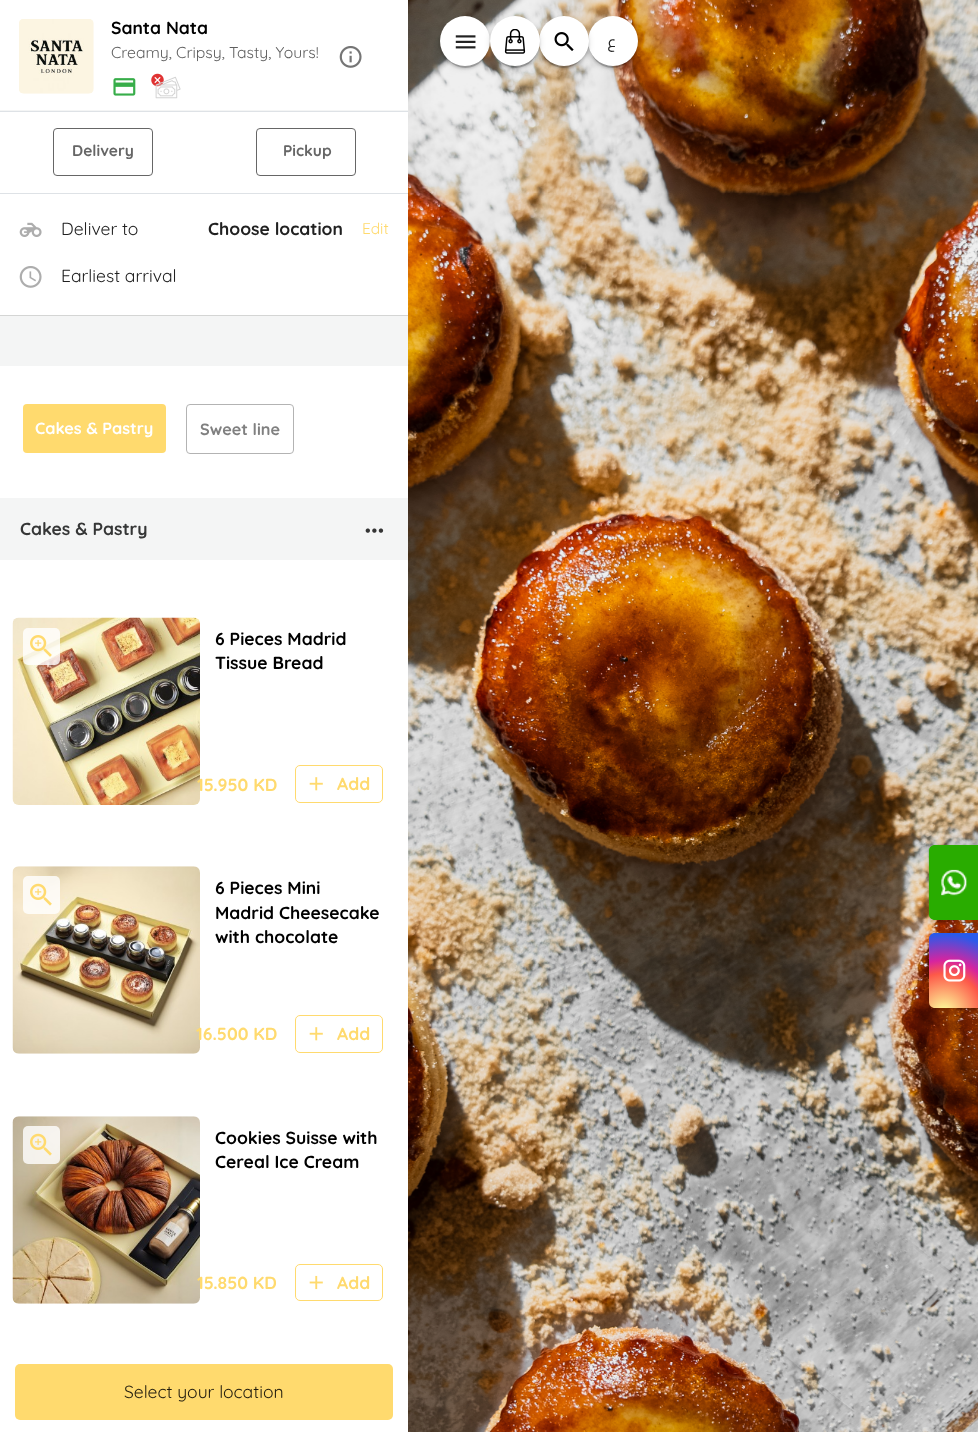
async function draw(canvas) {
  canvas.width = 978;
  canvas.height = 1432;
  const ctx = canvas.getContext('2d');
  ctx.miterLimit = 4;
  ctx.fontKerning = 'normal';
  function label(s, x, y, font, color) {
    ctx.font = font;
    ctx.fillStyle = color;
    ctx.fillText(s, x, y);
  }
  function rect(x, y, w, h, color) {
    ctx.fillStyle = color;
    ctx.fillRect(x, y, w, h);
  }
  function roundedRect(x, y, w, h, r, color) {
    ctx.fillStyle = color;
    ctx.beginPath();
    ctx.roundRect(x, y, w, h, r);
    ctx.fill();
  }
  async function image(src, x, y, w, h) {
    const img = new Image();
    img.src = src;
    await img.decode();
    ctx.drawImage(img, x, y, w, h);
  }
  let gradient, path;

  rect(0, 0, 978, 1432, '#f4f5f5');
  rect(0, 0, 408, 110, '#fff');
  await image('assets/img1.png', 19, 19, 75, 75);
  label('Santa Nata', 111, 34, '300 17.5px "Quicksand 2"', '#000');
  label('Creamy, Cripsy, Tasty, Yours!', 111, 58, '300 15.75px Quicksand', '#5f5f5f');
  await image('assets/img2.png', 113, 78, 23, 18);
  await image('assets/img3.png', 151, 73, 13, 14);
  await image('assets/img4.png', 155, 76, 26, 23);
  await image('assets/img5.png', 339, 46, 23, 22);
  rect(0, 112, 408, 203, '#fff');
  rect(0, 315, 408, 1, '#d4d5d4');
  rect(0, 111, 408, 1, '#dee2e6');
  rect(0, 193, 408, 1, '#dee2e6');
  ctx.beginPath();
  ctx.roundRect(53.5, 128.5, 99, 47, 3.5);
  ctx.strokeStyle = '#666';
  ctx.stroke();
  label('Delivery', 72, 156, '300 15.5px "Quicksand 2"', '#666');
  ctx.beginPath();
  ctx.roundRect(256.5, 128.5, 99, 47, 3.5);
  ctx.stroke();
  label('Pickup', 283, 156, '300 15.5px "Quicksand 2"', '#666');
  await image('assets/img6.png', 19, 222, 23, 15);
  label('Deliver to', 61, 235, '300 17.5px Quicksand', '#212121');
  label('Choose location', 208, 235, '300 17.5px "Quicksand 2"', '#212121');
  label('Edit', 362, 234, '300 15.5px Quicksand', '#ffda6e');
  await image('assets/img7.png', 19, 266, 23, 22);
  label('Earliest arrival', 61, 282, '300 17.5px Quicksand', '#212121');
  rect(0, 366, 408, 132, '#fff');
  roundedRect(23, 404, 143, 49, 4, '#ffda6e');
  label('Cakes & Pastry', 35, 434, '300 16.25px "Quicksand 2"', '#fff');
  ctx.beginPath();
  ctx.roundRect(186.5, 404.5, 107, 49, 3.5);
  ctx.strokeStyle = '#b3b3b3';
  ctx.stroke();
  label('Sweet line', 200, 435, '300 16.25px "Quicksand 2"', '#808080');
  label('Cakes & Pastry', 20, 535, '300 17.5px "Quicksand 2"', '#353636');
  await image('assets/img8.png', 365, 528, 19, 5);
  rect(0, 560, 408, 872, '#fff');
  await image('assets/img10.png', 12, 617, 188, 188);
  roundedRect(23, 628, 37, 37, 5, '#ffffffcc');
  await image('assets/img9.png', 30, 635, 22, 22);
  label('6 Pieces Madrid', 215, 645, '300 17.5px "Quicksand 2"', '#000');
  label('Tissue Bread', 215, 669, '300 17.5px "Quicksand 2"', '#000');
  label('15.950 KD', 197, 791, '300 17.5px "Quicksand 2"', '#ffda6e');
  ctx.beginPath();
  ctx.roundRect(295.5, 765.5, 87, 37, 4.5);
  ctx.strokeStyle = '#ffda6e';
  ctx.stroke();
  await image('assets/img11.png', 309, 777, 14, 14);
  label('Add', 337, 790, '300 17.5px "Quicksand 2"', '#ffda6e');
  await image('assets/img13.png', 12, 866, 188, 188);
  roundedRect(23, 876, 37, 38, 5, '#ffffffcc');
  await image('assets/img12.png', 30, 883, 22, 23);
  label('6 Pieces Mini', 215, 894, '300 17.5px "Quicksand 2"', '#000');
  label('Madrid Cheesecake', 215, 919, '300 17.5px "Quicksand 2"', '#000');
  label('with chocolate', 215, 943, '300 17.5px "Quicksand 2"', '#000');
  label('16.500 KD', 196, 1040, '300 17.5px "Quicksand 2"', '#ffda6e');
  ctx.beginPath();
  ctx.roundRect(295.5, 1015.5, 87, 37, 4.5);
  ctx.stroke();
  await image('assets/img11.png', 309, 1027, 14, 14);
  label('Add', 337, 1040, '300 17.5px "Quicksand 2"', '#ffda6e');
  await image('assets/img15.png', 12, 1116, 188, 188);
  roundedRect(23, 1126, 37, 38, 5, '#ffffffcc');
  await image('assets/img14.png', 30, 1133, 22, 23);
  label('Cookies Suisse with', 215, 1144, '300 17.5px "Quicksand 2"', '#000');
  label('Cereal Ice Cream', 215, 1168, '300 17.5px "Quicksand 2"', '#000');
  label('15.850 KD', 197, 1289, '300 17.5px "Quicksand 2"', '#ffda6e');
  ctx.beginPath();
  ctx.roundRect(295.5, 1264.5, 87, 36, 4.5);
  ctx.stroke();
  await image('assets/img16.png', 309, 1275, 14, 15);
  label('Add', 337, 1289, '300 17.5px "Quicksand 2"', '#ffda6e');
  roundedRect(15, 1364, 378, 56, 5, '#ffda6e');
  label('Select your location', 124, 1398, '300 17.5px Quicksand', '#211c0e');
  await image('assets/img17.png', 408, 0, 570, 1432);
  ctx.fillStyle = '#0000001f';
  ctx.filter = 'blur(3px)';
  ctx.beginPath();
  ctx.roundRect(440, 18, 50, 50, 25);
  ctx.fill();
  ctx.filter = 'none';
  ctx.fillStyle = '#00000024';
  ctx.filter = 'blur(1px)';
  ctx.beginPath();
  ctx.roundRect(440, 19, 50, 50, 25);
  ctx.fill();
  ctx.filter = 'none';
  ctx.fillStyle = '#00000033';
  ctx.filter = 'blur(0.5px)';
  ctx.beginPath();
  ctx.roundRect(443, 23, 45, 45, 22.5);
  ctx.fill();
  ctx.filter = 'none';
  ctx.fillStyle = '#fff';
  ctx.beginPath();
  ctx.arc(465, 41, 25, 0, 2 * Math.PI);
  ctx.fill();
  await image('assets/img18.png', 455, 35, 21, 14);
  ctx.fillStyle = '#0000001f';
  ctx.filter = 'blur(3px)';
  ctx.beginPath();
  ctx.roundRect(588, 18, 50, 50, 25);
  ctx.fill();
  ctx.filter = 'none';
  ctx.fillStyle = '#00000024';
  ctx.filter = 'blur(1px)';
  ctx.beginPath();
  ctx.roundRect(588, 19, 50, 50, 25);
  ctx.fill();
  ctx.filter = 'none';
  ctx.fillStyle = '#00000033';
  ctx.filter = 'blur(0.5px)';
  ctx.beginPath();
  ctx.roundRect(590, 23, 45, 45, 22.5);
  ctx.fill();
  ctx.filter = 'none';
  ctx.fillStyle = '#fff';
  ctx.beginPath();
  ctx.arc(613, 41, 25, 0, 2 * Math.PI);
  ctx.fill();
  ctx.fillStyle = '#0000001f';
  ctx.filter = 'blur(3px)';
  ctx.beginPath();
  ctx.roundRect(539, 18, 50, 50, 25);
  ctx.fill();
  ctx.filter = 'none';
  ctx.fillStyle = '#00000024';
  ctx.filter = 'blur(1px)';
  ctx.beginPath();
  ctx.roundRect(539, 19, 50, 50, 25);
  ctx.fill();
  ctx.filter = 'none';
  ctx.fillStyle = '#00000033';
  ctx.filter = 'blur(0.5px)';
  ctx.beginPath();
  ctx.roundRect(541, 23, 45, 45, 22.5);
  ctx.fill();
  ctx.filter = 'none';
  ctx.fillStyle = '#fff';
  ctx.beginPath();
  ctx.arc(564, 41, 25, 0, 2 * Math.PI);
  ctx.fill();
  ctx.fillStyle = '#0000001f';
  ctx.filter = 'blur(3px)';
  ctx.beginPath();
  ctx.roundRect(490, 18, 50, 50, 25);
  ctx.fill();
  ctx.filter = 'none';
  ctx.fillStyle = '#00000024';
  ctx.filter = 'blur(1px)';
  ctx.beginPath();
  ctx.roundRect(490, 19, 50, 50, 25);
  ctx.fill();
  ctx.filter = 'none';
  ctx.fillStyle = '#00000033';
  ctx.filter = 'blur(0.5px)';
  ctx.beginPath();
  ctx.roundRect(493, 23, 45, 45, 22.5);
  ctx.fill();
  ctx.filter = 'none';
  ctx.fillStyle = '#fff';
  ctx.beginPath();
  ctx.arc(515, 41, 25, 0, 2 * Math.PI);
  ctx.fill();
  await image('assets/img19.png', 504, 29, 22, 25);
  await image('assets/img20.png', 554, 32, 20, 19);
  ctx.direction = 'rtl';
  label('ع', 616, 47, '15.5px Cairo', '#212121');
  ctx.fillStyle = '#00000026';
  ctx.filter = 'blur(2px)';
  ctx.beginPath();
  ctx.roundRect(928, 845, 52, 78, 8);
  ctx.fill();
  ctx.filter = 'none';
  ctx.fillStyle = '#29ac00';
  path = new Path2D('M935 845H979V920H935C931.5 920 929 917.5 929 914V851C929 847.5 931.5 845 935 845Z');
  ctx.fill(path);
  await image('assets/img21.png', 928, 846, 40, 73);
  ctx.fillStyle = '#00000026';
  ctx.filter = 'blur(2px)';
  ctx.beginPath();
  ctx.roundRect(928, 933, 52, 77, 8);
  ctx.fill();
  ctx.filter = 'none';
  gradient = ctx.createRadialGradient(944, 1013, 0, 944, 1013, 88);
  gradient.addColorStop(0, '#fdf497');
  gradient.addColorStop(0.05, '#fdf497');
  gradient.addColorStop(0.45, '#fd5949');
  gradient.addColorStop(0.6, '#d6249f');
  gradient.addColorStop(0.9, '#285aeb');
  ctx.fillStyle = gradient;
  path = new Path2D('M935 933H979V1008H935C931.5 1008 929 1005.5 929 1002V939C929 935.5 931.5 933 935 933Z');
  ctx.fill(path);
  await image('assets/img22.png', 943, 959, 23, 23);
}

draw(document.querySelector('canvas'));
